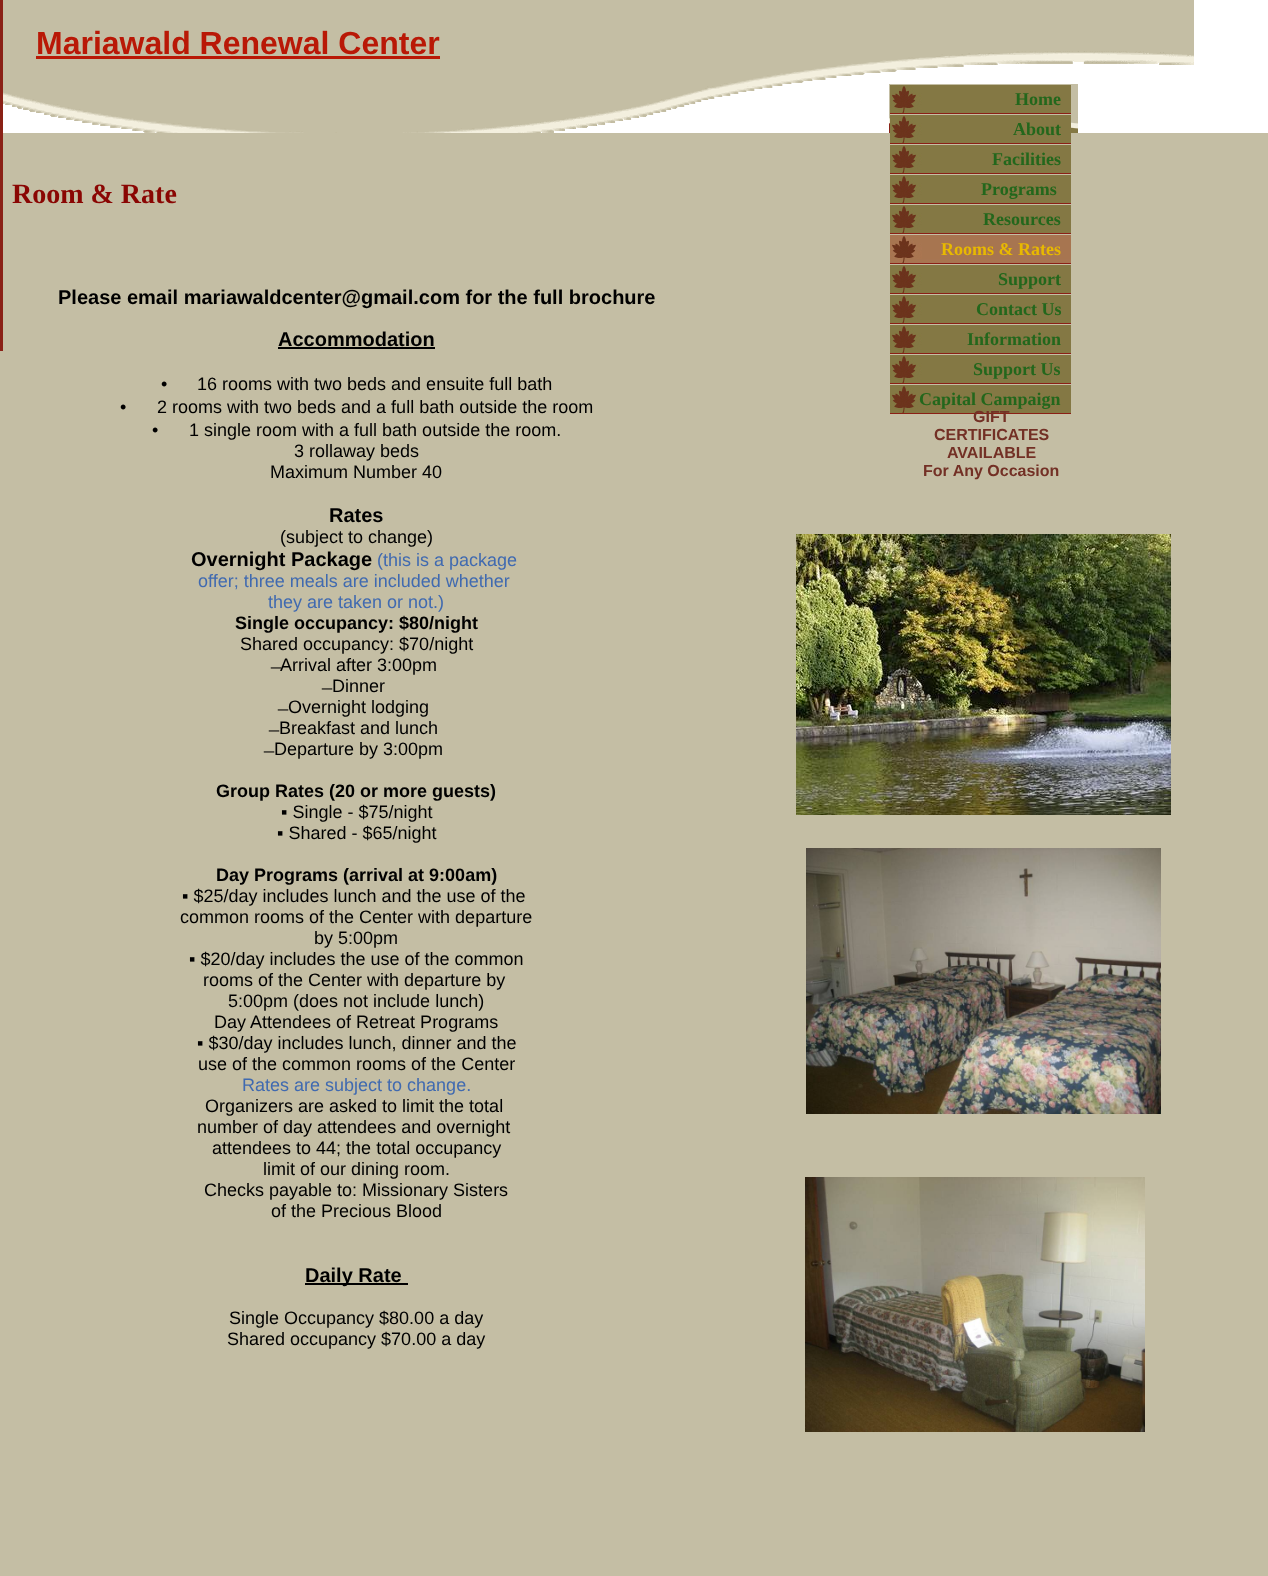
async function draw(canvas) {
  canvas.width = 1268;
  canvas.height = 1576;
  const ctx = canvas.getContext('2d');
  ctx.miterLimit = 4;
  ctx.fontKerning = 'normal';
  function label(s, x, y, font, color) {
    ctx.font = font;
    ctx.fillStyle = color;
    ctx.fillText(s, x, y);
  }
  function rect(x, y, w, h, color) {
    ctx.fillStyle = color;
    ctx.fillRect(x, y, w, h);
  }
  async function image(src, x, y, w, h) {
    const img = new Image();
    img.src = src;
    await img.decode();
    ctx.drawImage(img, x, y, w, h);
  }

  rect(0, 0, 1268, 1576, '#fff');
  rect(0, 133, 1268, 1443, '#c4bea4');
  rect(0, 0, 3, 351, '#8a2116');
  await image('assets/img1.png', 3, 0, 1191, 133);
  label('Mariawald Renewal Center', 36, 54, 'bold 32px Liberation Sans', '#b91806');
  rect(36, 56, 404, 3, '#b91806');
  await image('assets/img2.png', 889, 84, 189, 49);
  await image('assets/img3.png', 890, 85, 181, 29);
  label('Home', 1015, 105, 'bold 18px Liberation Serif', '#23671c');
  await image('assets/img3.png', 890, 115, 181, 29);
  label('About', 1013, 135, 'bold 18px Liberation Serif', '#23671c');
  await image('assets/img3.png', 890, 145, 181, 29);
  label('Facilities', 992, 165, 'bold 18px Liberation Serif', '#23671c');
  await image('assets/img3.png', 890, 175, 181, 29);
  label('Programs', 981, 195, 'bold 18px Liberation Serif', '#23671c');
  await image('assets/img3.png', 890, 205, 181, 29);
  label('Resources', 983, 225, 'bold 18px Liberation Serif', '#23671c');
  await image('assets/img4.png', 890, 235, 181, 29);
  label('Rooms & Rates', 941, 255, 'bold 18px Liberation Serif', '#e8b900');
  await image('assets/img3.png', 890, 265, 181, 29);
  label('Support', 998, 285, 'bold 18px Liberation Serif', '#23671c');
  await image('assets/img3.png', 890, 295, 181, 29);
  label('Contact Us', 976, 315, 'bold 18px Liberation Serif', '#23671c');
  await image('assets/img3.png', 890, 325, 181, 29);
  label('Information', 967, 345, 'bold 18px Liberation Serif', '#23671c');
  await image('assets/img3.png', 890, 355, 181, 29);
  label('Support Us', 973, 375, 'bold 18px Liberation Serif', '#23671c');
  await image('assets/img3.png', 890, 385, 181, 29);
  label('Capital Campaign', 919, 405, 'bold 18px Liberation Serif', '#23671c');
  label('Room & Rate', 12, 203, 'bold 28px Liberation Serif', '#8a0603');
  label('Please email mariawaldcenter@gmail.com for the full brochure', 58, 304, 'bold 20px Liberation Sans', '#000');
  label('Accommodation', 278, 346, 'bold 20px Liberation Sans', '#000');
  rect(278, 347, 157, 2, '#000');
  label('•', 161, 390, '18px Liberation Sans', '#000');
  label('16 rooms with two beds and ensuite full bath', 197, 390, '18px Liberation Sans', '#000');
  label('•', 120, 413, '18px Liberation Sans', '#000');
  label('2 rooms with two beds and a full bath outside the room', 157, 413, '18px Liberation Sans', '#000');
  label('•', 152, 436, '18px Liberation Sans', '#000');
  label('1 single room with a full bath outside the room.', 189, 436, '18px Liberation Sans', '#000');
  label('3 rollaway beds', 294, 457, '18px Liberation Sans', '#000');
  label('Maximum Number 40', 270, 478, '18px Liberation Sans', '#000');
  label('Rates', 329, 522, 'bold 20px Liberation Sans', '#000');
  label('(subject to change)', 280, 543, '18px Liberation Sans', '#000');
  label('Overnight Package', 191, 566, 'bold 20px Liberation Sans', '#000');
  label('(this is a package', 377, 566, '18px Liberation Sans', '#406ab0');
  label('offer; three meals are included whether', 198, 587, '18px Liberation Sans', '#406ab0');
  label('they are taken or not.)', 268, 608, '18px Liberation Sans', '#406ab0');
  label('Single occupancy: $80/night', 235, 629, 'bold 18px Liberation Sans', '#000');
  label('Shared occupancy: $70/night', 240, 650, '18px Liberation Sans', '#000');
  label('̶ Arrival after 3:00pm', 276, 671, '18px Liberation Sans', '#000');
  label('̶ Dinner', 327, 692, '18px Liberation Sans', '#000');
  label('̶ Overnight lodging', 283, 713, '18px Liberation Sans', '#000');
  label('̶ Breakfast and lunch', 274, 734, '18px Liberation Sans', '#000');
  label('̶ Departure by 3:00pm', 269, 755, '18px Liberation Sans', '#000');
  label('Group Rates (20 or more guests)', 216, 797, 'bold 18px Liberation Sans', '#000');
  label('▪ Single - $75/night', 281, 818, '18px Liberation Sans', '#000');
  label('▪ Shared - $65/night', 277, 839, '18px Liberation Sans', '#000');
  label('Day Programs (arrival at 9:00am)', 216, 881, 'bold 18px Liberation Sans', '#000');
  label('▪ $25/day includes lunch and the use of the', 182, 902, '18px Liberation Sans', '#000');
  label('common rooms of the Center with departure', 180, 923, '18px Liberation Sans', '#000');
  label('by 5:00pm', 314, 944, '18px Liberation Sans', '#000');
  label('▪ $20/day includes the use of the common', 189, 965, '18px Liberation Sans', '#000');
  label('rooms of the Center with departure by', 203, 986, '18px Liberation Sans', '#000');
  label('5:00pm (does not include lunch)', 228, 1007, '18px Liberation Sans', '#000');
  label('Day Attendees of Retreat Programs', 214, 1028, '18px Liberation Sans', '#000');
  label('▪ $30/day includes lunch, dinner and the', 197, 1049, '18px Liberation Sans', '#000');
  label('use of the common rooms of the Center', 198, 1070, '18px Liberation Sans', '#000');
  label('Rates are subject to change.', 242, 1091, '18px Liberation Sans', '#406ab0');
  label('Organizers are asked to limit the total', 205, 1112, '18px Liberation Sans', '#000');
  label('number of day attendees and overnight', 197, 1133, '18px Liberation Sans', '#000');
  label('attendees to 44; the total occupancy', 212, 1154, '18px Liberation Sans', '#000');
  label('limit of our dining room.', 263, 1175, '18px Liberation Sans', '#000');
  label('Checks payable to: Missionary Sisters', 204, 1196, '18px Liberation Sans', '#000');
  label('of the Precious Blood', 271, 1217, '18px Liberation Sans', '#000');
  rect(305, 1283, 103, 2, '#000');
  label('Daily Rate', 305, 1282, 'bold 20px Liberation Sans', '#000');
  label('Single Occupancy $80.00 a day', 229, 1324, '18px Liberation Sans', '#000');
  label('Shared occupancy $70.00 a day', 227, 1345, '18px Liberation Sans', '#000');
  label('GIFT', 973, 422, 'bold 16px Liberation Sans', '#733025');
  label('CERTIFICATES', 934, 440, 'bold 16px Liberation Sans', '#733025');
  label('AVAILABLE', 947, 458, 'bold 16px Liberation Sans', '#733025');
  label('For Any Occasion', 923, 476, 'bold 16px Liberation Sans', '#733025');
  await image('assets/img5.png', 796, 534, 375, 281);
  await image('assets/img6.png', 806, 848, 355, 266);
  await image('assets/img7.png', 805, 1177, 340, 255);
}

draw(document.querySelector('canvas'));
